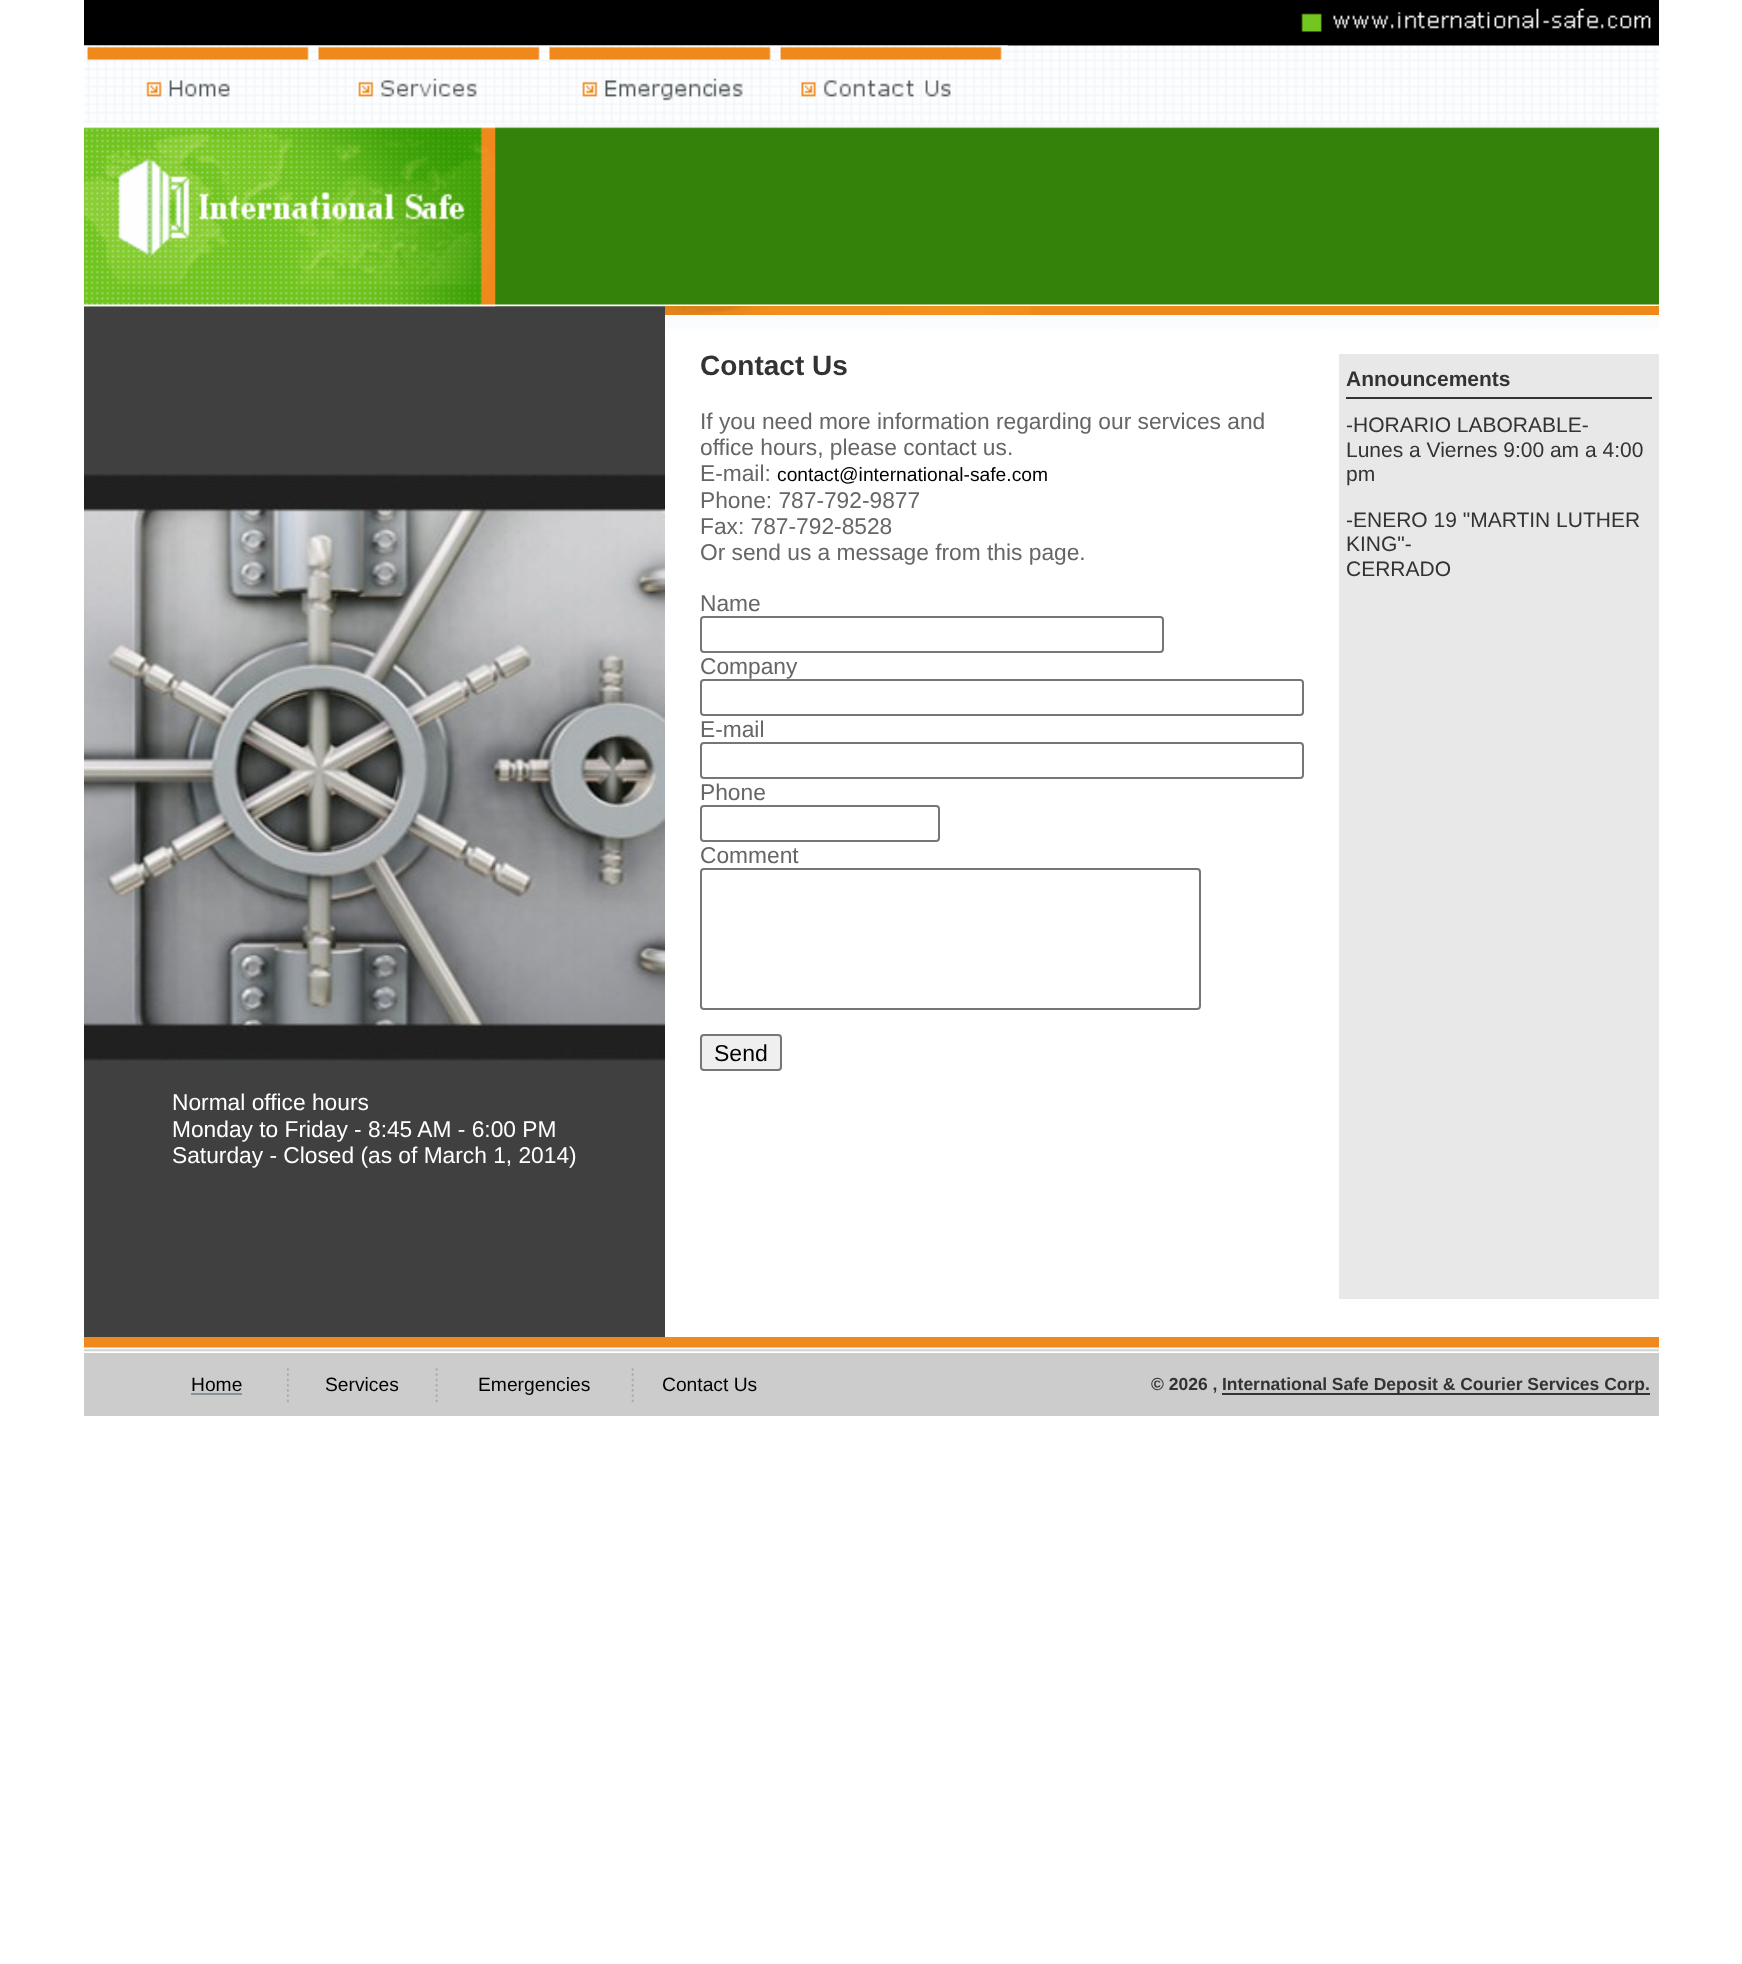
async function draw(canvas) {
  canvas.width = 1742;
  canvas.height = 1964;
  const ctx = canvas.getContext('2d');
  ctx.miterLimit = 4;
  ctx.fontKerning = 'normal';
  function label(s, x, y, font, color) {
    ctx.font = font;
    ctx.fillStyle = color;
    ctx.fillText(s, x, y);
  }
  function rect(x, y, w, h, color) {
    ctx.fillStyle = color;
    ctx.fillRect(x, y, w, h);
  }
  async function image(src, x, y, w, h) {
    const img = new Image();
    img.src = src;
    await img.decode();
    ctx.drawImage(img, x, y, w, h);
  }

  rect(0, 0, 1742, 1964, '#fff');
  rect(84, 0, 1575, 46, '#000');
  await image('assets/img1.png', 1301, 8, 350, 24);
  await image('assets/img2.png', 84, 45, 1575, 79);
  await image('assets/img3.png', 84, 45, 231, 52);
  await image('assets/img4.png', 315, 45, 231, 79);
  await image('assets/img5.png', 546, 45, 231, 79);
  await image('assets/img6.png', 777, 45, 231, 79);
  await image('assets/img7.png', 84, 124, 1575, 181);
  await image('assets/img11.png', 84, 306, 581, 1031);
  await image('assets/img8.png', 84, 124, 412, 183);
  await image('assets/img9.png', 665, 315, 994, 14);
  rect(665, 306, 994, 9, '#ef891c');
  await image('assets/img10.png', 665, 306, 365, 9);
  label('Contact Us', 700, 375, 'bold 28px Liberation Sans', '#333');
  label('If you need more information regarding our services and', 700, 429, '22.75px Liberation Sans', '#666');
  label('office hours, please contact us.', 700, 455, '22.75px Liberation Sans', '#666');
  label('E-mail:', 700, 481, '22.75px Liberation Sans', '#666');
  label('contact@international-safe.com', 777, 481, '19.25px Liberation Sans', '#000');
  label('Phone: 787-792-9877', 700, 508, '22.75px Liberation Sans', '#666');
  label('Fax: 787-792-8528', 700, 534, '22.75px Liberation Sans', '#666');
  label('Or send us a message from this page.', 700, 560, '22.75px Liberation Sans', '#666');
  label('Name', 700, 611, '22.75px Liberation Sans', '#666');
  ctx.beginPath();
  ctx.roundRect(701, 617, 462, 35, 3);
  ctx.strokeStyle = '#767676';
  ctx.lineWidth = 2;
  ctx.stroke();
  label('Company', 700, 674, '22.75px Liberation Sans', '#666');
  ctx.beginPath();
  ctx.roundRect(701, 680, 602, 35, 3);
  ctx.stroke();
  label('E-mail', 700, 737, '22.75px Liberation Sans', '#666');
  ctx.beginPath();
  ctx.roundRect(701, 743, 602, 35, 3);
  ctx.stroke();
  label('Phone', 700, 800, '22.75px Liberation Sans', '#666');
  ctx.beginPath();
  ctx.roundRect(701, 806, 238, 35, 3);
  ctx.stroke();
  label('Comment', 700, 863, '22.75px Liberation Sans', '#666');
  ctx.beginPath();
  ctx.roundRect(701, 869, 499, 140, 3);
  ctx.stroke();
  ctx.fillStyle = '#efefef';
  ctx.beginPath();
  ctx.roundRect(701, 1035, 80, 35, 3);
  ctx.fill();
  ctx.stroke();
  label('Send', 714, 1061, '23px Liberation Sans', '#000');
  rect(1339, 354, 320, 945, '#e8e8e8');
  rect(1346, 397, 306, 2, '#333');
  label('Announcements', 1346, 386, 'bold 21px Liberation Sans', '#333');
  label('-HORARIO LABORABLE-', 1346, 432, '21px Liberation Sans', '#333');
  label('Lunes a Viernes 9:00 am a 4:00', 1346, 457, '21px Liberation Sans', '#333');
  label('pm', 1346, 481, '21px Liberation Sans', '#333');
  label('-ENERO 19 "MARTIN LUTHER', 1346, 527, '21px Liberation Sans', '#333');
  label('KING"-', 1346, 551, '21px Liberation Sans', '#333');
  label('CERRADO', 1346, 576, '21px Liberation Sans', '#333');
  label('Normal office hours', 172, 1110, '22.75px Liberation Sans', '#fff');
  label('Monday to Friday - 8:45 AM - 6:00 PM', 172, 1137, '22.75px Liberation Sans', '#fff');
  label('Saturday - Closed (as of March 1, 2014)', 172, 1163, '22.75px Liberation Sans', '#fff');
  await image('assets/img12.png', 84, 1337, 1575, 15);
  rect(84, 1353, 1575, 63, '#ccc');
  label('Home', 191, 1391, '19.25px Liberation Sans', '#000');
  rect(191, 1393, 51, 2, '#899297');
  await image('assets/img13.png', 287, 1368, 2, 35);
  label('Services', 325, 1391, '19.25px Liberation Sans', '#000');
  await image('assets/img14.png', 435, 1368, 3, 35);
  label('Emergencies', 478, 1391, '19.25px Liberation Sans', '#000');
  await image('assets/img14.png', 631, 1368, 3, 35);
  label('Contact Us', 662, 1391, '19.25px Liberation Sans', '#000');
  label('© 2026 ,', 1151, 1390, 'bold 17.5px Liberation Sans', '#333');
  rect(1222, 1393, 428, 2, '#333');
  label('International Safe Deposit & Courier Services Corp.', 1222, 1390, 'bold 17.5px Liberation Sans', '#333');
}

draw(document.querySelector('canvas'));
